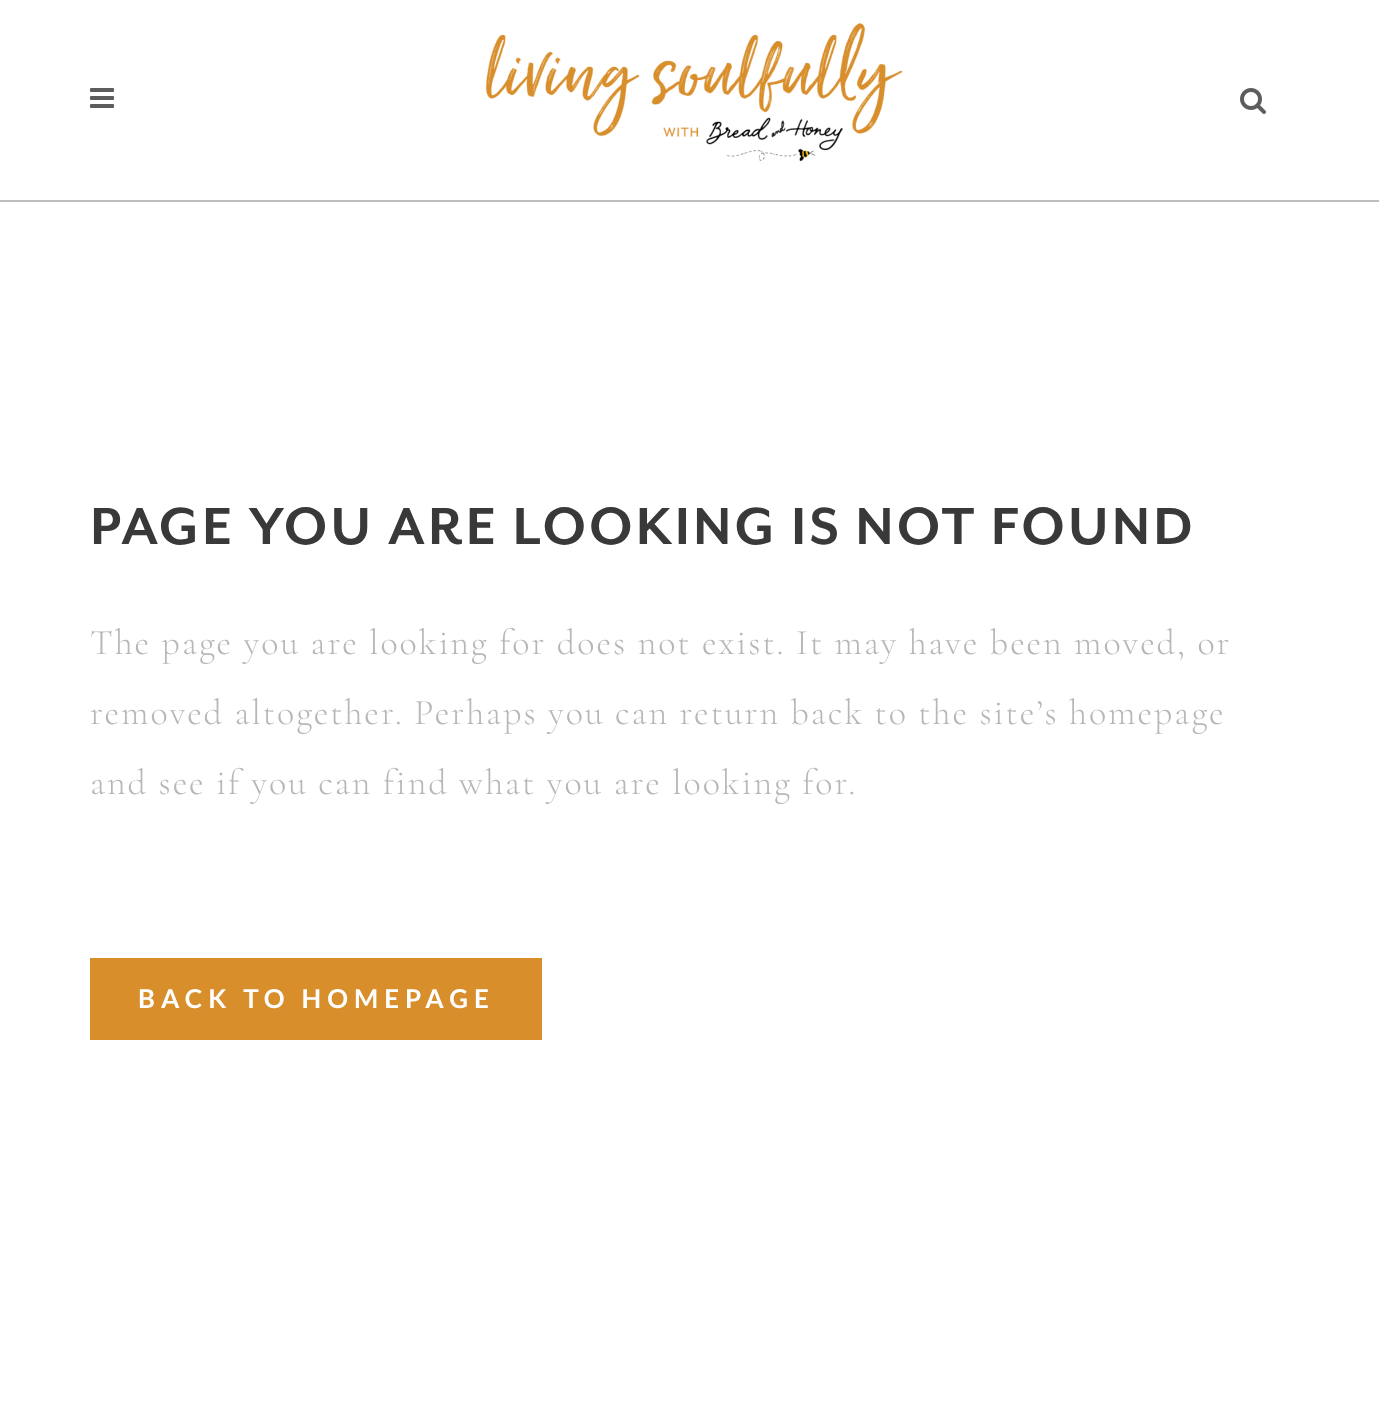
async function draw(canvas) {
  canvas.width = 1379;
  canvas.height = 1406;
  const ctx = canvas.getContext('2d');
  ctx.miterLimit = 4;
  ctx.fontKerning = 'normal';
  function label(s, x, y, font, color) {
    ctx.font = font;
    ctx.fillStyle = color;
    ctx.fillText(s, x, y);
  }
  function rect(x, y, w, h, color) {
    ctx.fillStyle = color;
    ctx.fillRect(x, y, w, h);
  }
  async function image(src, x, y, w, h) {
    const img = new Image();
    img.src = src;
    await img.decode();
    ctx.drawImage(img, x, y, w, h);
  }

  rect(0, 0, 1379, 1406, '#fff');
  rect(0, 200, 1379, 2, '#bdbdbd');
  await image('assets/img1.png', 90, 88, 24, 20);
  await image('assets/img2.png', 485, 23, 418, 139);
  await image('assets/img3.png', 1240, 88, 26, 26);
  ctx.letterSpacing = '3px';
  label('PAGE YOU ARE LOOKING IS NOT FOUND', 90, 544, 'bold 60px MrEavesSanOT', '#393939');
  ctx.letterSpacing = '2px';
  label('The page you are looking for does not exist. It may have been moved, or', 90, 654, '300 36px Cormorant Garamond', '#b7b7b7');
  label('removed altogether. Perhaps you can return back to the site’s homepage', 90, 724, '300 36px Cormorant Garamond', '#b7b7b7');
  label('and see if you can find what you are looking for.', 90, 794, '300 36px Cormorant Garamond', '#b7b7b7');
  rect(90, 958, 452, 82, '#d78e2b');
  ctx.letterSpacing = '6px';
  label('BACK TO HOMEPAGE', 138, 1008, 'bold 26px Lato', '#fff');
}

draw(document.querySelector('canvas'));
